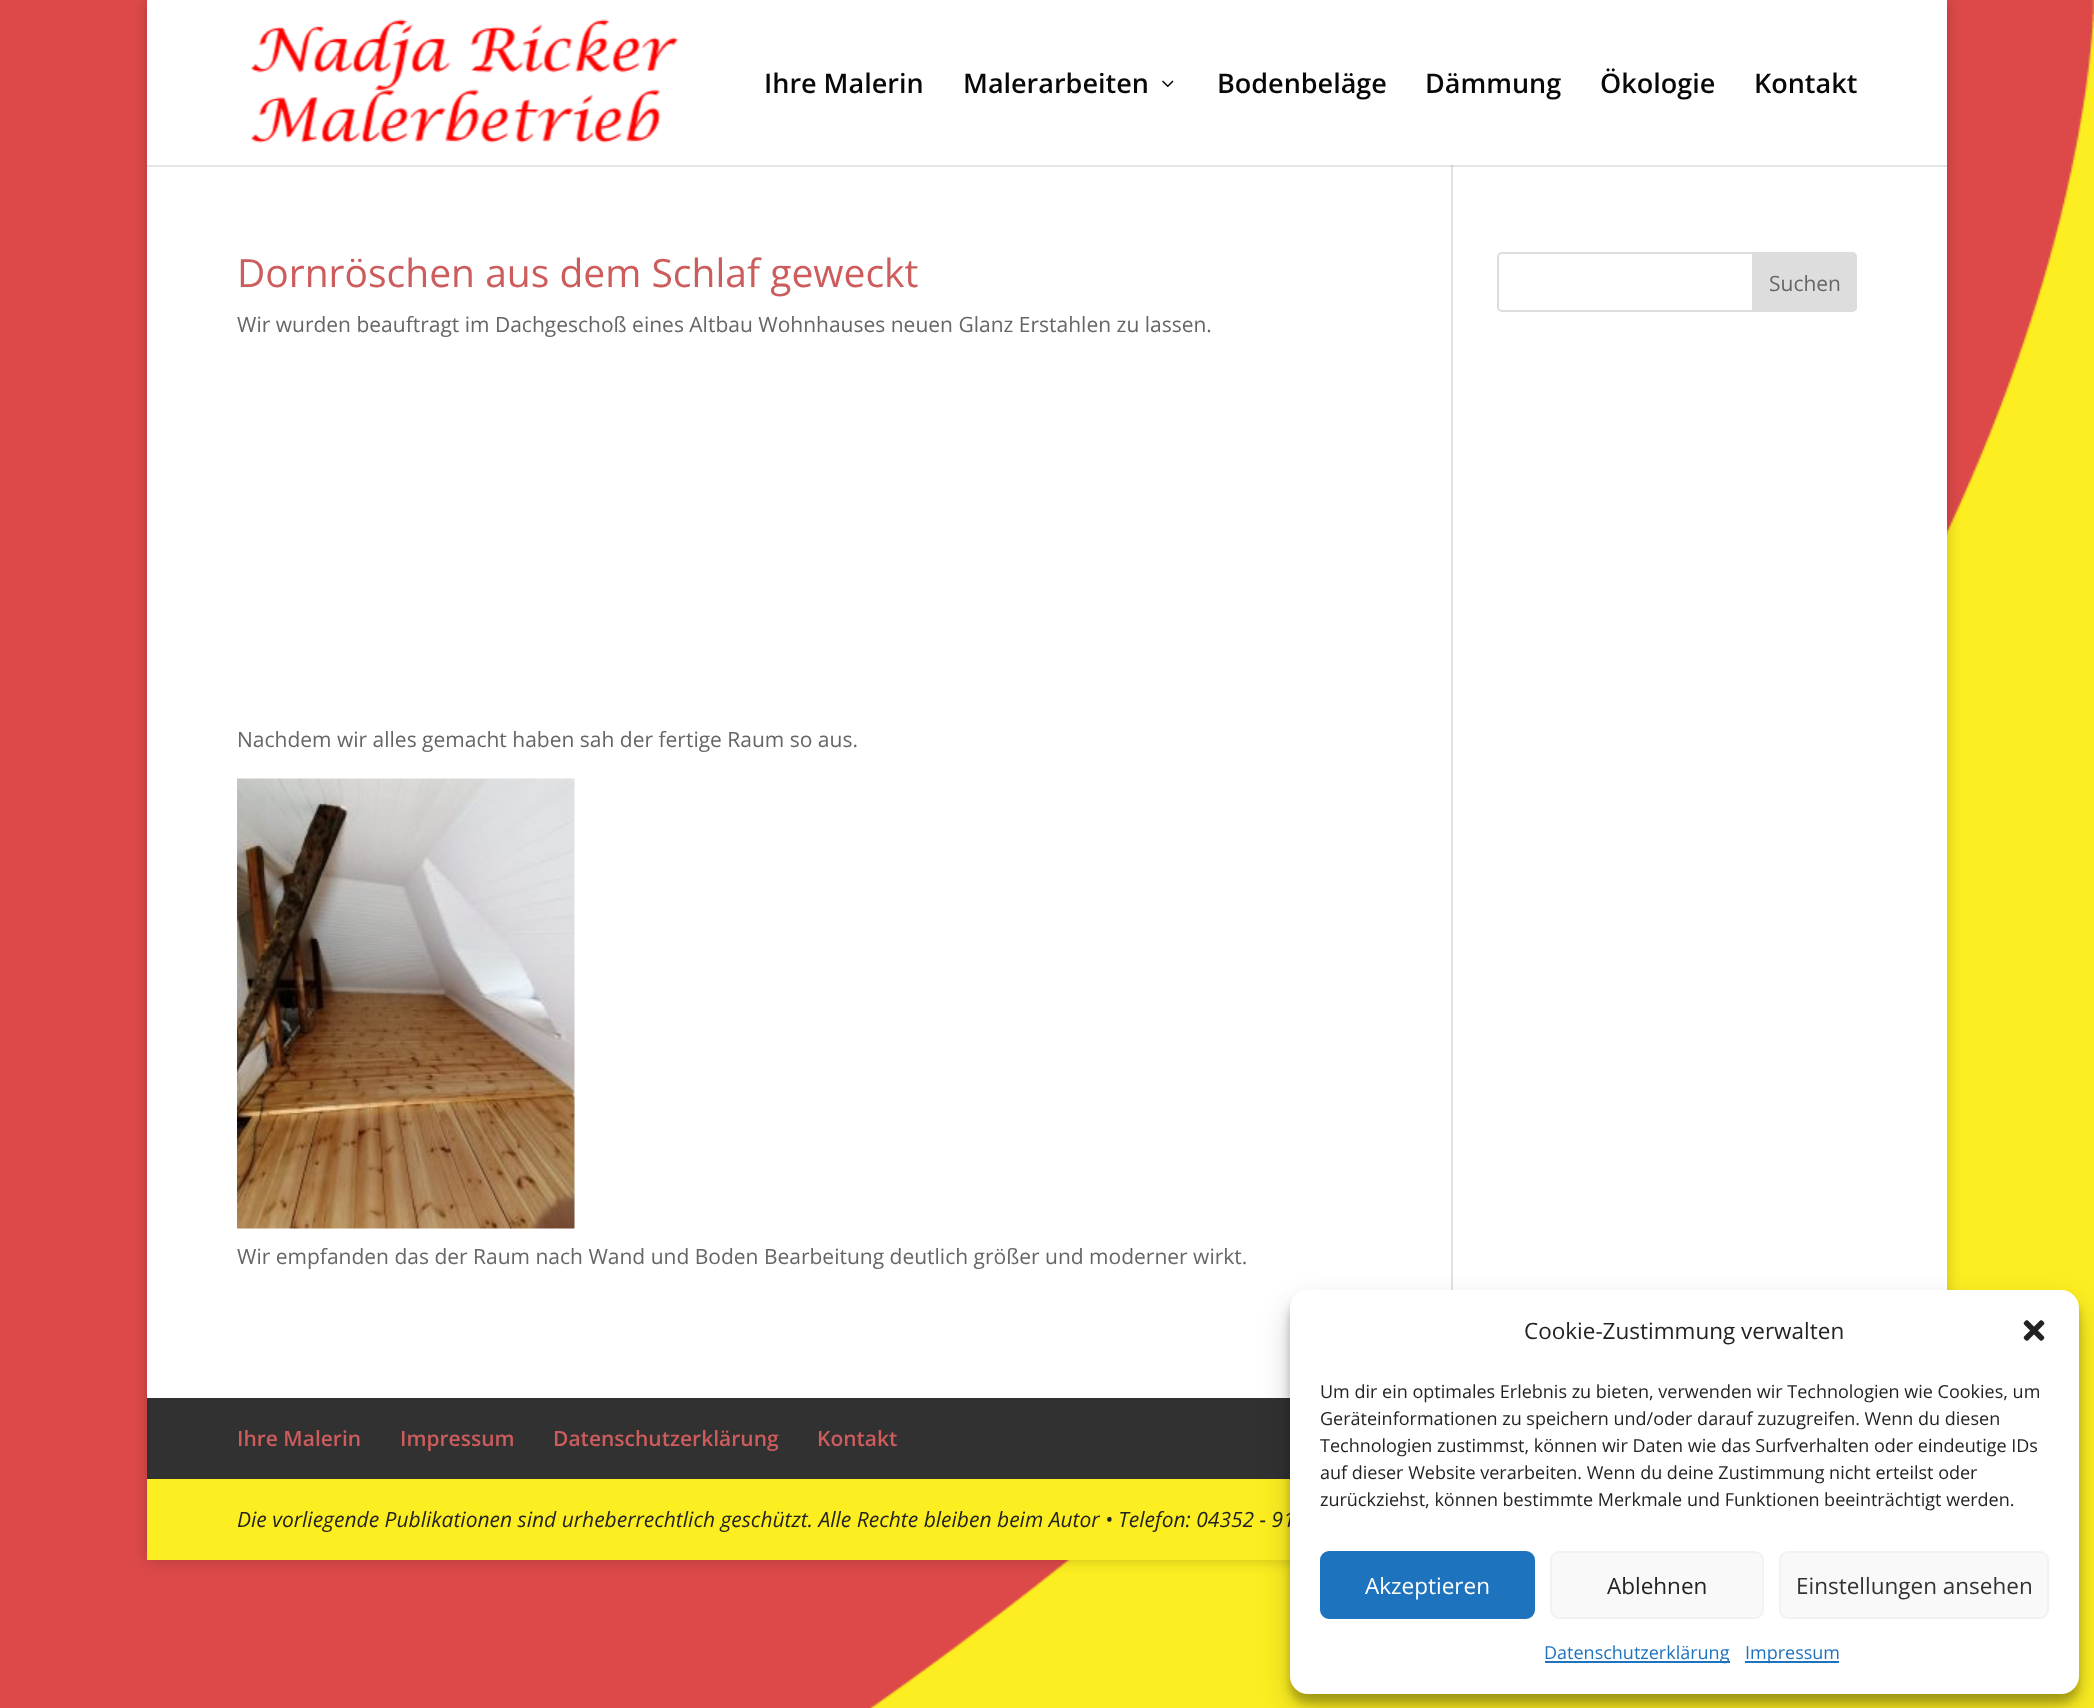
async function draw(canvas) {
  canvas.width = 2094;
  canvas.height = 1708;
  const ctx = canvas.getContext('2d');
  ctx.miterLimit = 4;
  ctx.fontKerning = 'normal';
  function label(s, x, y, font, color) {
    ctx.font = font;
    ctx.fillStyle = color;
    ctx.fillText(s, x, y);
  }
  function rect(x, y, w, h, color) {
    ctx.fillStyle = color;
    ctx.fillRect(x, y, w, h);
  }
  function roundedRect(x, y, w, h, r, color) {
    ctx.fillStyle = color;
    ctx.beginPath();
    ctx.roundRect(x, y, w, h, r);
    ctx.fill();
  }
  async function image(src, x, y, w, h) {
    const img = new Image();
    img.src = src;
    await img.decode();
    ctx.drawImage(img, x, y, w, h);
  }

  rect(0, 0, 2094, 1708, '#dd4949');
  await image('assets/img1.png', 870, 0, 1224, 1708);
  ctx.fillStyle = '#00000033';
  ctx.filter = 'blur(7.5px)';
  ctx.beginPath();
  ctx.rect(147, 0, 1800, 1560);
  ctx.fill();
  ctx.filter = 'none';
  rect(147, 0, 1800, 165, '#fff');
  await image('assets/img2.png', 250, 19, 429, 124);
  label('Ihre Malerin', 764, 93, '600 27px Open Sans', '#080808');
  label('Malerarbeiten', 963, 93, '600 27px Open Sans', '#080808');
  await image('assets/img3.png', 1162, 80, 12, 7);
  label('Bodenbeläge', 1217, 93, '600 27px Open Sans', '#080808');
  label('Dämmung', 1425, 93, '600 27px Open Sans', '#080808');
  label('Ökologie', 1600, 93, '600 27px Open Sans', '#080808');
  label('Kontakt', 1754, 93, '600 27px Open Sans', '#080808');
  rect(147, 167, 1800, 1231, '#fff');
  rect(147, 165, 1800, 2, '#e6e6e6');
  rect(1451, 165, 2, 1125, '#e2e2e2');
  rect(1451, 165, 2, 2, '#cbcbcb');
  label('Dornröschen aus dem Schlaf geweckt', 237, 287, '39px Open Sans', '#cd5c5c');
  label('Wir wurden beauftragt im Dachgeschoß eines Altbau Wohnhauses neuen Glanz Erstahlen zu lassen.', 237, 332, '21px Open Sans', '#666');
  label('Nachdem wir alles gemacht haben sah der fertige Raum so aus.', 237, 747, '21px Open Sans', '#666');
  await image('assets/img4.png', 237, 778, 338, 451);
  label('Wir empfanden das der Raum nach Wand und Boden Bearbeitung deutlich größer und moderner wirkt.', 237, 1264, '21px Open Sans', '#666');
  ctx.beginPath();
  ctx.roundRect(1498, 253, 358, 58, 4);
  ctx.strokeStyle = '#ddd';
  ctx.lineWidth = 2;
  ctx.stroke();
  ctx.fillStyle = '#ddd';
  ctx.beginPath();
  ctx.roundRect(1753, 253, 103, 58, [0, 4, 4, 0]);
  ctx.fill();
  ctx.stroke();
  label('Suchen', 1769, 291, '21px Open Sans', '#666');
  rect(147, 1398, 1143, 81, '#313131');
  label('Ihre Malerin', 237, 1446, '600 21px Open Sans', '#cd5c5c');
  label('Impressum', 400, 1446, '600 21px Open Sans', '#cd5c5c');
  label('Datenschutzerklärung', 553, 1446, '600 21px Open Sans', '#cd5c5c');
  label('Kontakt', 817, 1446, '600 21px Open Sans', '#cd5c5c');
  rect(147, 1479, 1143, 81, '#fcee21');
  label('Die vorliegende Publikationen sind urheberrechtlich geschützt. Alle Rechte bleiben beim Autor • Telefon: 04352 - 91', 237, 1527, 'italic 21px Open Sans', '#232323');
  ctx.fillStyle = '#0000003b';
  ctx.filter = 'blur(4.5px)';
  ctx.beginPath();
  ctx.roundRect(1290, 1299, 789, 404, 18);
  ctx.fill();
  ctx.filter = 'none';
  ctx.fillStyle = '#00000030';
  ctx.filter = 'blur(15px)';
  ctx.beginPath();
  ctx.roundRect(1290, 1305, 789, 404, 18);
  ctx.fill();
  ctx.filter = 'none';
  roundedRect(1290, 1290, 789, 404, 18, '#fff');
  label('Cookie-Zustimmung verwalten', 1524, 1339, '22.5px Open Sans', '#232323');
  await image('assets/img5.png', 2023, 1320, 22, 21);
  label('Um dir ein optimales Erlebnis zu bieten, verwenden wir Technologien wie Cookies, um', 1320, 1398, '18px Open Sans', '#232323');
  label('Geräteinformationen zu speichern und/oder darauf zuzugreifen. Wenn du diesen', 1320, 1425, '18px Open Sans', '#232323');
  label('Technologien zustimmst, können wir Daten wie das Surfverhalten oder eindeutige IDs', 1320, 1452, '18px Open Sans', '#232323');
  label('auf dieser Website verarbeiten. Wenn du deine Zustimmung nicht erteilst oder', 1320, 1479, '18px Open Sans', '#232323');
  label('zurückziehst, können bestimmte Merkmale und Funktionen beeinträchtigt werden.', 1320, 1506, '18px Open Sans', '#232323');
  ctx.fillStyle = '#1e73be';
  ctx.beginPath();
  ctx.roundRect(1321, 1552, 213, 66, 8);
  ctx.fill();
  ctx.strokeStyle = '#1e73be';
  ctx.stroke();
  label('Akzeptieren', 1365, 1594, '22.5px Open Sans', '#fff');
  ctx.fillStyle = '#f9f9f9';
  ctx.beginPath();
  ctx.roundRect(1551, 1552, 212, 66, 8);
  ctx.fill();
  ctx.strokeStyle = '#f2f2f2';
  ctx.stroke();
  label('Ablehnen', 1607, 1594, '22.5px Open Sans', '#232323');
  ctx.fillStyle = '#f9f9f9';
  ctx.beginPath();
  ctx.roundRect(1780, 1552, 268, 66, 8);
  ctx.fill();
  ctx.stroke();
  label('Einstellungen ansehen', 1796, 1594, '22.5px Open Sans', '#333');
  rect(1545, 1661, 185, 2, '#1e73be');
  label('Datenschutzerklärung', 1544, 1659, '18px Open Sans', '#1e73be');
  rect(1745, 1661, 94, 2, '#1e73be');
  label('Impressum', 1745, 1659, '18px Open Sans', '#1e73be');
}

draw(document.querySelector('canvas'));
